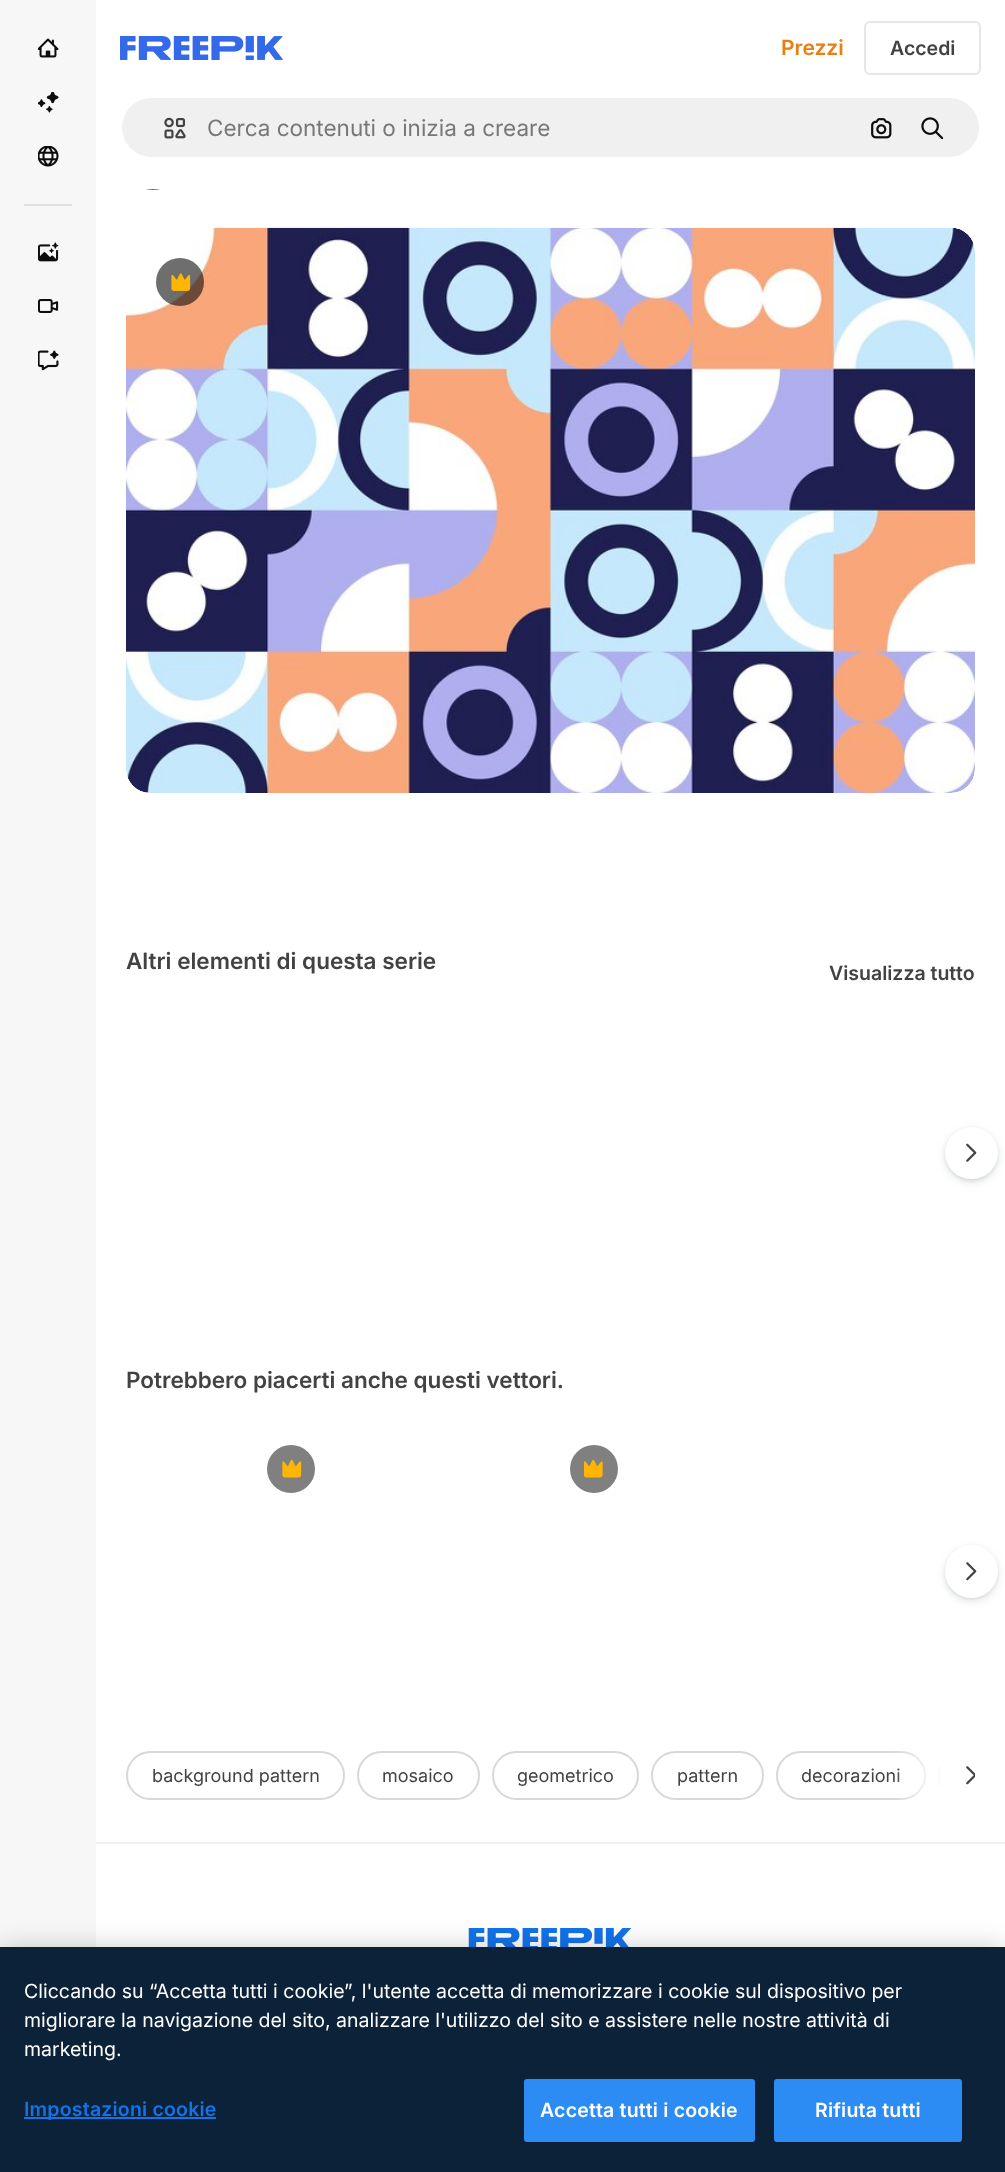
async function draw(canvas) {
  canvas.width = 1005;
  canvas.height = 2172;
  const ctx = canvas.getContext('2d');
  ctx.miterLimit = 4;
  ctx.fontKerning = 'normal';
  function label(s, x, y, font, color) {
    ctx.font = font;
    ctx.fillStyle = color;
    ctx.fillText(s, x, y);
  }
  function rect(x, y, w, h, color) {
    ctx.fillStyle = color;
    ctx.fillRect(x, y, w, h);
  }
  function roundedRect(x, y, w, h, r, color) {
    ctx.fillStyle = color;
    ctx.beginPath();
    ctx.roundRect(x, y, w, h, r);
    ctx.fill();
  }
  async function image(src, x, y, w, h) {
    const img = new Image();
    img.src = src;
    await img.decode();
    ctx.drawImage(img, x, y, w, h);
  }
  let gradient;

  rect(0, 0, 1005, 2172, '#fff');
  rect(0, 0, 96, 1947, '#f7f7f7');
  await image('assets/img1.png', 38, 38, 21, 20);
  await image('assets/img2.png', 38, 92, 21, 21);
  await image('assets/img3.png', 38, 146, 21, 21);
  rect(24, 204, 48, 2, '#e0e0e0');
  await image('assets/img4.png', 38, 242, 21, 20);
  await image('assets/img5.png', 38, 299, 21, 14);
  await image('assets/img6.png', 38, 350, 21, 21);
  await image('assets/img7.png', 120, 36, 163, 24);
  label('Prezzi', 781, 55, '600 21px Inter', '#ea7e11');
  ctx.beginPath();
  ctx.roundRect(865, 22, 115, 52, 5);
  ctx.strokeStyle = '#e7e7e7';
  ctx.lineWidth = 2;
  ctx.stroke();
  label('Accedi', 890, 55, '600 19.5px Inter', '#424242');
  ctx.fillStyle = '#f0f0f0';
  ctx.beginPath();
  ctx.roundRect(121, 97, 859, 61, 30.5);
  ctx.fill();
  ctx.strokeStyle = '#fff';
  ctx.stroke();
  await image('assets/img8.png', 164, 117, 22, 22);
  label('Cerca contenuti o inizia a creare', 207, 136, '22.5px Inter', '#777');
  await image('assets/img9.png', 871, 118, 21, 21);
  await image('assets/img10.png', 921, 117, 23, 23);
  await image('assets/img11.png', 146, 189, 14, 1);
  await image('assets/img12.png', 126, 227, 849, 566);
  ctx.fillStyle = '#0d0d0d99';
  ctx.beginPath();
  ctx.arc(180, 282, 24, 0, 2 * Math.PI);
  ctx.fill();
  await image('assets/img13.png', 171, 273, 20, 18);
  label('Altri elementi di questa serie', 126, 969, '600 22.5px Inter', '#424242');
  label('Visualizza tutto', 829, 980, '600 19.5px Inter', '#424242');
  ctx.fillStyle = '#37495726';
  ctx.filter = 'blur(4px)';
  ctx.beginPath();
  ctx.roundRect(945, 1130, 53, 52, 26);
  ctx.fill();
  ctx.filter = 'none';
  ctx.fillStyle = '#3749571a';
  ctx.filter = 'blur(1.5px)';
  ctx.beginPath();
  ctx.roundRect(945, 1128, 53, 53, 26.5);
  ctx.fill();
  ctx.filter = 'none';
  roundedRect(945, 1127, 53, 52, 26, '#fff');
  await image('assets/img14.png', 966, 1143, 11, 19);
  label('Potrebbero piacerti anche questi vettori.', 126, 1388, '600 22.5px Inter', '#424242');
  ctx.fillStyle = '#808080';
  ctx.beginPath();
  ctx.arc(291, 1469, 24, 0, 2 * Math.PI);
  ctx.fill();
  await image('assets/img15.png', 282, 1460, 20, 18);
  ctx.beginPath();
  ctx.arc(594, 1469, 24, 0, 2 * Math.PI);
  ctx.fill();
  await image('assets/img16.png', 584, 1460, 19, 18);
  ctx.fillStyle = '#37495726';
  ctx.filter = 'blur(4px)';
  ctx.beginPath();
  ctx.roundRect(945, 1548, 53, 53, 26.5);
  ctx.fill();
  ctx.filter = 'none';
  ctx.fillStyle = '#3749571a';
  ctx.filter = 'blur(1.5px)';
  ctx.beginPath();
  ctx.roundRect(945, 1547, 53, 52, 26);
  ctx.fill();
  ctx.filter = 'none';
  ctx.fillStyle = '#fff';
  ctx.beginPath();
  ctx.arc(971.5, 1571.5, 26.5, 0, 2 * Math.PI);
  ctx.fill();
  await image('assets/img17.png', 966, 1562, 11, 19);
  ctx.beginPath();
  ctx.roundRect(127, 1752, 217, 47, 23.5);
  ctx.strokeStyle = '#d8d8d8';
  ctx.stroke();
  label('background pattern', 152, 1782, '18px Inter', '#424242');
  ctx.beginPath();
  ctx.roundRect(358, 1752, 121, 47, 23.5);
  ctx.stroke();
  label('mosaico', 382, 1782, '18px Inter', '#424242');
  ctx.beginPath();
  ctx.roundRect(493, 1752, 145, 47, 23.5);
  ctx.stroke();
  label('geometrico', 517, 1782, '18px Inter', '#424242');
  ctx.beginPath();
  ctx.roundRect(652, 1752, 111, 47, 23.5);
  ctx.stroke();
  label('pattern', 677, 1782, '18px Inter', '#424242');
  ctx.beginPath();
  ctx.roundRect(777, 1752, 148, 47, 23.5);
  ctx.stroke();
  label('decorazioni', 801, 1782, '18px Inter', '#424242');
  ctx.save();
  ctx.beginPath();
  ctx.rect(126, 1751, 849, 49);
  ctx.clip();
  ctx.beginPath();
  ctx.roundRect(939, 1752, 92, 47, 23.5);
  ctx.stroke();
  ctx.restore();
  rect(945, 1751, 30, 49, '#fff');
  gradient = ctx.createLinearGradient(945, 1775, 893, 1775);
  gradient.addColorStop(0, '#fff');
  gradient.addColorStop(1, '#ffffff00');
  ctx.fillStyle = gradient;
  ctx.fillRect(894, 1751, 51, 49);
  await image('assets/img18.png', 966, 1766, 9, 19);
  rect(96, 1842, 909, 2, '#f0f0f0');
  await image('assets/img19.png', 468, 1928, 164, 19);
  ctx.fillStyle = '#00000033';
  ctx.filter = 'blur(13.5px)';
  ctx.beginPath();
  ctx.rect(0, 1947, 1005, 225);
  ctx.fill();
  ctx.filter = 'none';
  rect(0, 1947, 1005, 225, '#0b2239');
  label('Cliccando su “Accetta tutti i cookie”, l\'utente accetta di memorizzare i cookie sul dispositivo per', 24, 1998, '19.5px Inter', '#fff');
  label('migliorare la navigazione del sito, analizzare l\'utilizzo del sito e assistere nelle nostre attività di', 24, 2027, '19.5px Inter', '#fff');
  label('marketing.', 24, 2056, '19.5px Inter', '#fff');
  rect(24, 2117, 192, 2, '#1273eb');
  ctx.letterSpacing = '0.2px';
  label('Impostazioni cookie', 24, 2116, '600 19.5px Inter', '#1273eb');
  ctx.fillStyle = '#2c8cf4';
  ctx.beginPath();
  ctx.roundRect(525, 2080, 229, 61, 2);
  ctx.fill();
  ctx.strokeStyle = '#2c8cf4';
  ctx.stroke();
  label('Accetta tutti i cookie', 540, 2117, '600 19.5px Inter', '#fff');
  ctx.fillStyle = '#2c8cf4';
  ctx.beginPath();
  ctx.roundRect(775, 2080, 186, 61, 2);
  ctx.fill();
  ctx.stroke();
  label('Rifiuta tutti', 815, 2117, '600 19.5px Inter', '#fff');
}

draw(document.querySelector('canvas'));
